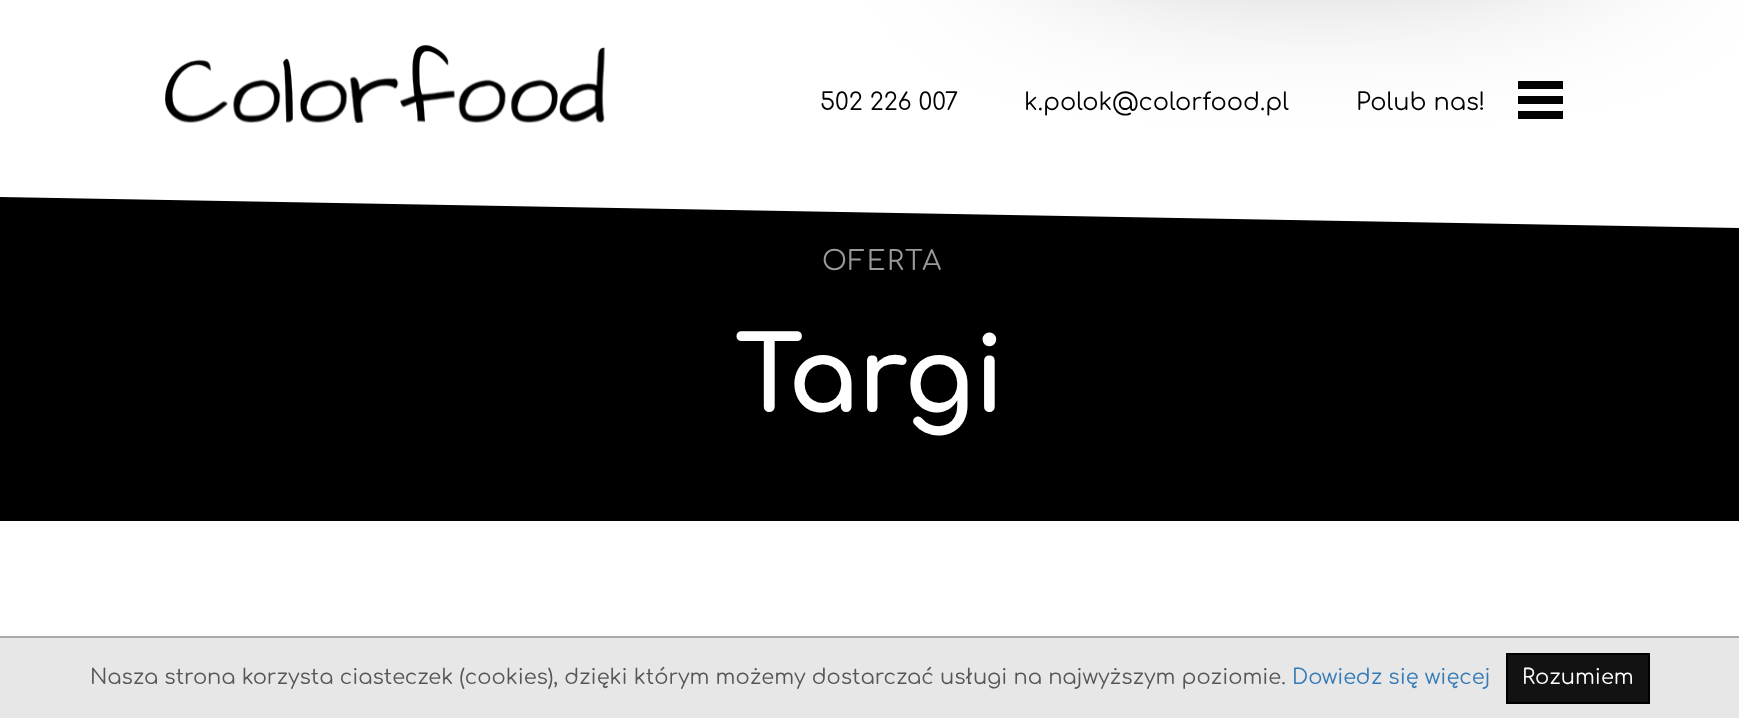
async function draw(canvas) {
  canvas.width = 1739;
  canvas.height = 718;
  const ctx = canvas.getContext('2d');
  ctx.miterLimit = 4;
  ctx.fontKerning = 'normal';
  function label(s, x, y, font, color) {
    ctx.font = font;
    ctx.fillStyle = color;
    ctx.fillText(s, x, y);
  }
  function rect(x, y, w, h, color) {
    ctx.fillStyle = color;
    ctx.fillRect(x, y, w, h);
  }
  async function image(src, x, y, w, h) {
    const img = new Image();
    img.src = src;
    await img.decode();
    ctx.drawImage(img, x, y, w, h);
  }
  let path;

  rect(0, 0, 1739, 718, '#fff');
  await image('assets/img1.png', 165, 45, 440, 78);
  rect(0, 197, 1739, 324, '#000');
  ctx.save();
  ctx.beginPath();
  ctx.rect(0, 138, 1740, 383);
  ctx.clip();
  ctx.fillStyle = '#fff';
  path = new Path2D('M0 62L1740 93V228L0 197Z');
  ctx.fill(path);
  ctx.restore();
  ctx.fillStyle = '#000000d9';
  ctx.filter = 'blur(112.5px)';
  ctx.beginPath();
  ctx.rect(1073, -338, 495, 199);
  ctx.fill();
  ctx.filter = 'none';
  label('502 226 007', 820, 110, '24px Comfortaa', '#000');
  label('k.polok@colorfood.pl', 1024, 110, '24px Comfortaa', '#000');
  label('Polub nas!', 1356, 110, '24px Comfortaa', '#000');
  rect(1518, 81, 45, 8, '#000');
  rect(1518, 96, 45, 8, '#000');
  rect(1518, 111, 45, 8, '#000');
  ctx.letterSpacing = '1.5px';
  label('OFERTA', 822, 270, '27px Comfortaa', '#999');
  ctx.letterSpacing = '0px';
  label('Targi', 735, 412, 'bold 103.5px Comfortaa', '#fff');
  rect(0, 638, 1739, 80, '#e7e7e7');
  rect(0, 636, 1739, 2, '#aaa');
  label('Nasza strona korzysta ciasteczek (cookies), dzięki którym możemy dostarczać usługi na najwyższym poziomie.', 90, 684, '21px Comfortaa', '#575555');
  label('Dowiedz się więcej', 1292, 684, '21px Comfortaa', '#337ab7');
  ctx.fillStyle = '#121212';
  ctx.beginPath();
  ctx.rect(1507, 654, 142, 49);
  ctx.fill();
  ctx.strokeStyle = '#000';
  ctx.lineWidth = 2;
  ctx.stroke();
  label('Rozumiem', 1522, 684, '21px Comfortaa', '#fff');
}

draw(document.querySelector('canvas'));
